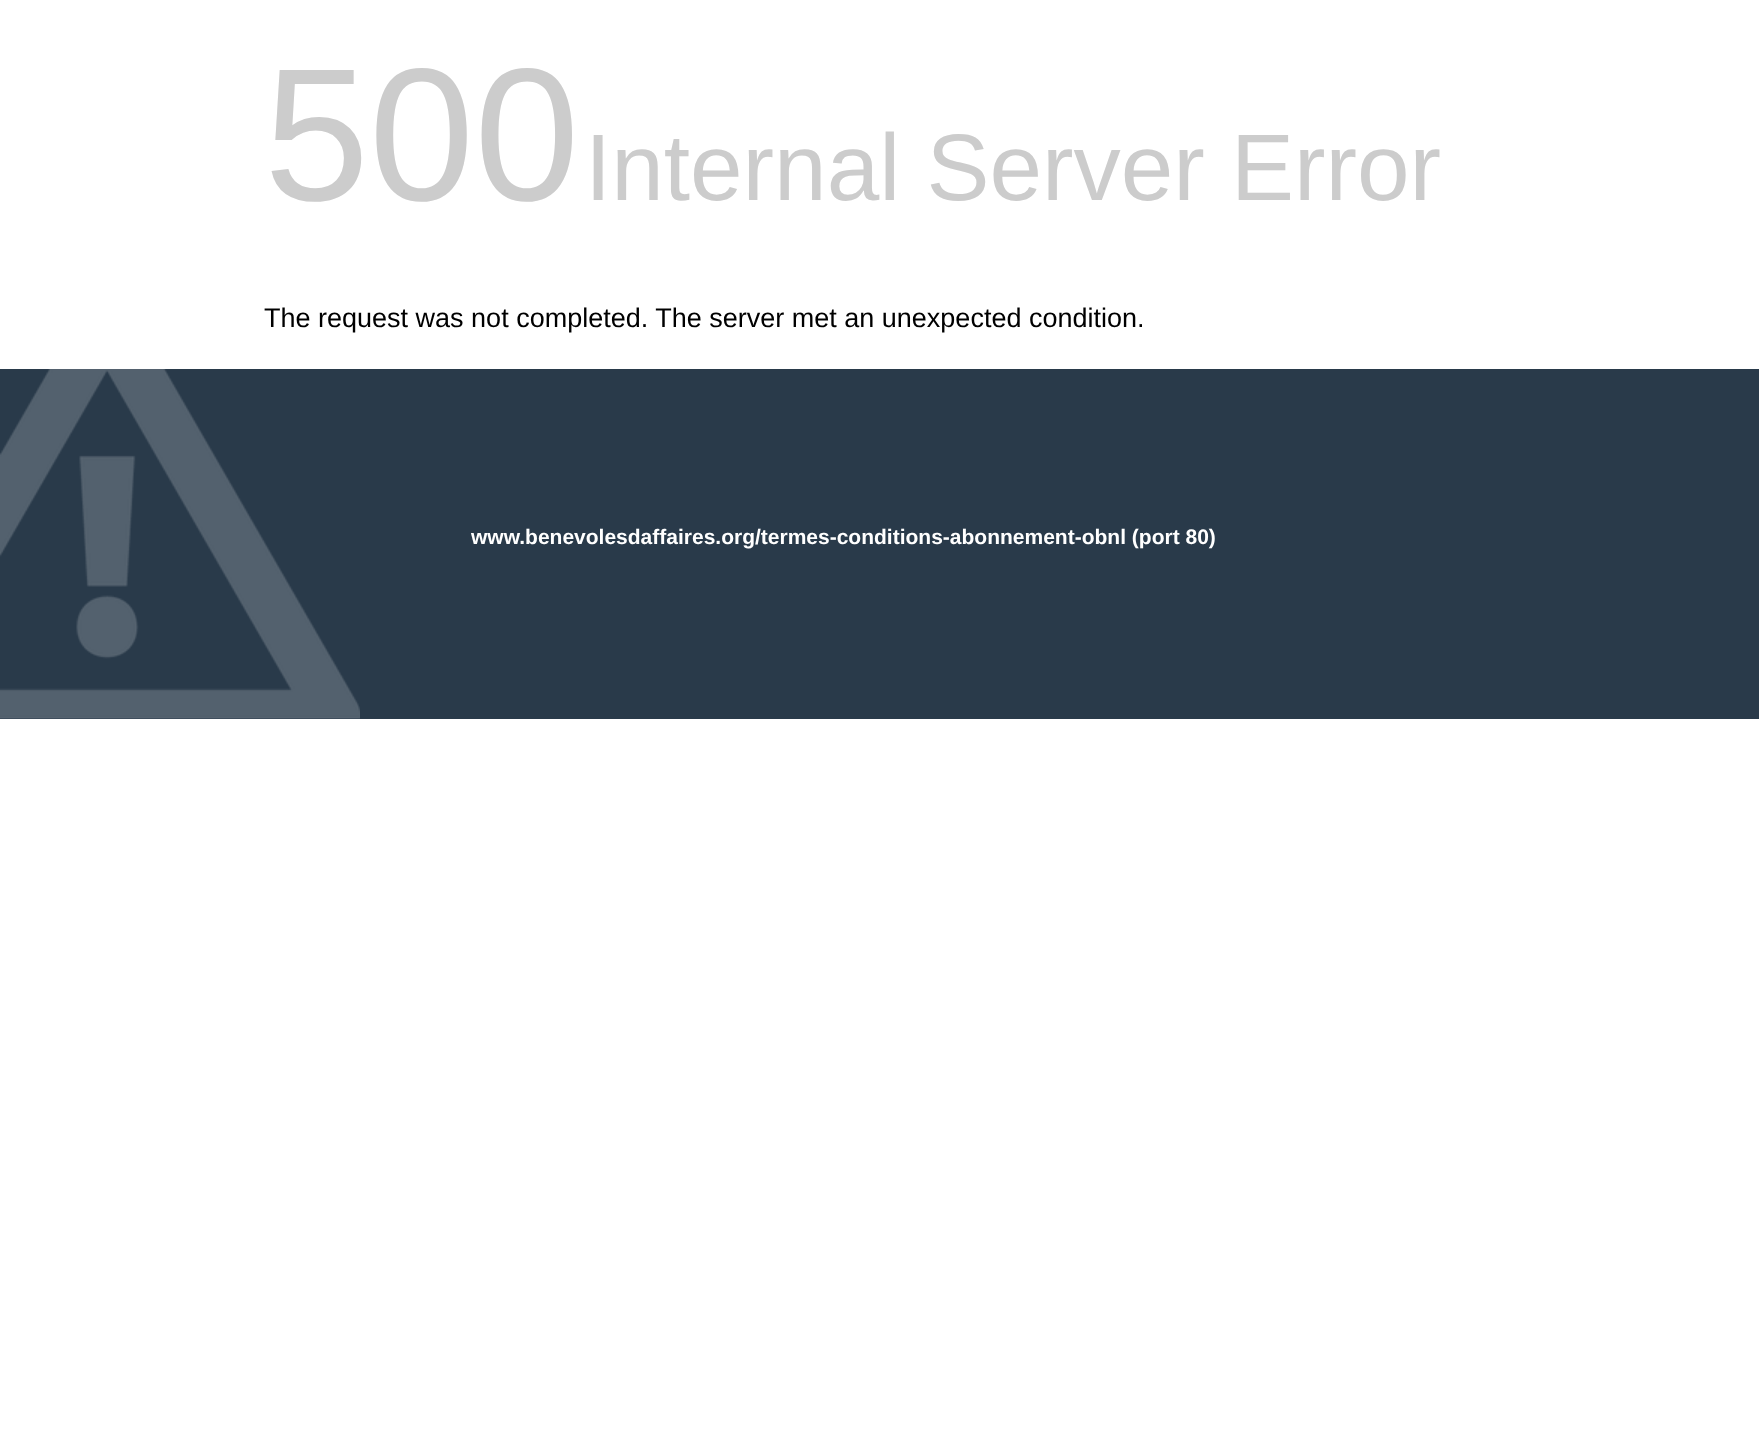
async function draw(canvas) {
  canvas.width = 1759;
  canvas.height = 1431;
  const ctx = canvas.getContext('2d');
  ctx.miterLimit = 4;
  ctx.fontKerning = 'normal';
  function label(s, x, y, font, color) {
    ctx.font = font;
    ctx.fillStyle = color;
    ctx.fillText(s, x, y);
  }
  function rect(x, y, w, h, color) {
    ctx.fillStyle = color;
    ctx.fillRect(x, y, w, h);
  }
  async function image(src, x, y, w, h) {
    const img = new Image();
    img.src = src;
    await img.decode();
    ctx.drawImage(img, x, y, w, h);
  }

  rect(0, 0, 1759, 1431, '#fff');
  label('500', 264, 200, '189px Liberation Sans', '#ccc');
  label('Internal Server Error', 585, 200, '94.5px Liberation Sans', '#ccc');
  label('The request was not completed. The server met an unexpected condition.', 264, 327, '27px Liberation Sans', '#000');
  rect(0, 369, 1759, 350, '#293a4a');
  await image('assets/img1.png', 0, 369, 360, 350);
  label('www.benevolesdaffaires.org/termes-conditions-abonnement-obnl (port 80)', 471, 544, 'bold 21px Liberation Sans', '#fff');
}

draw(document.querySelector('canvas'));
